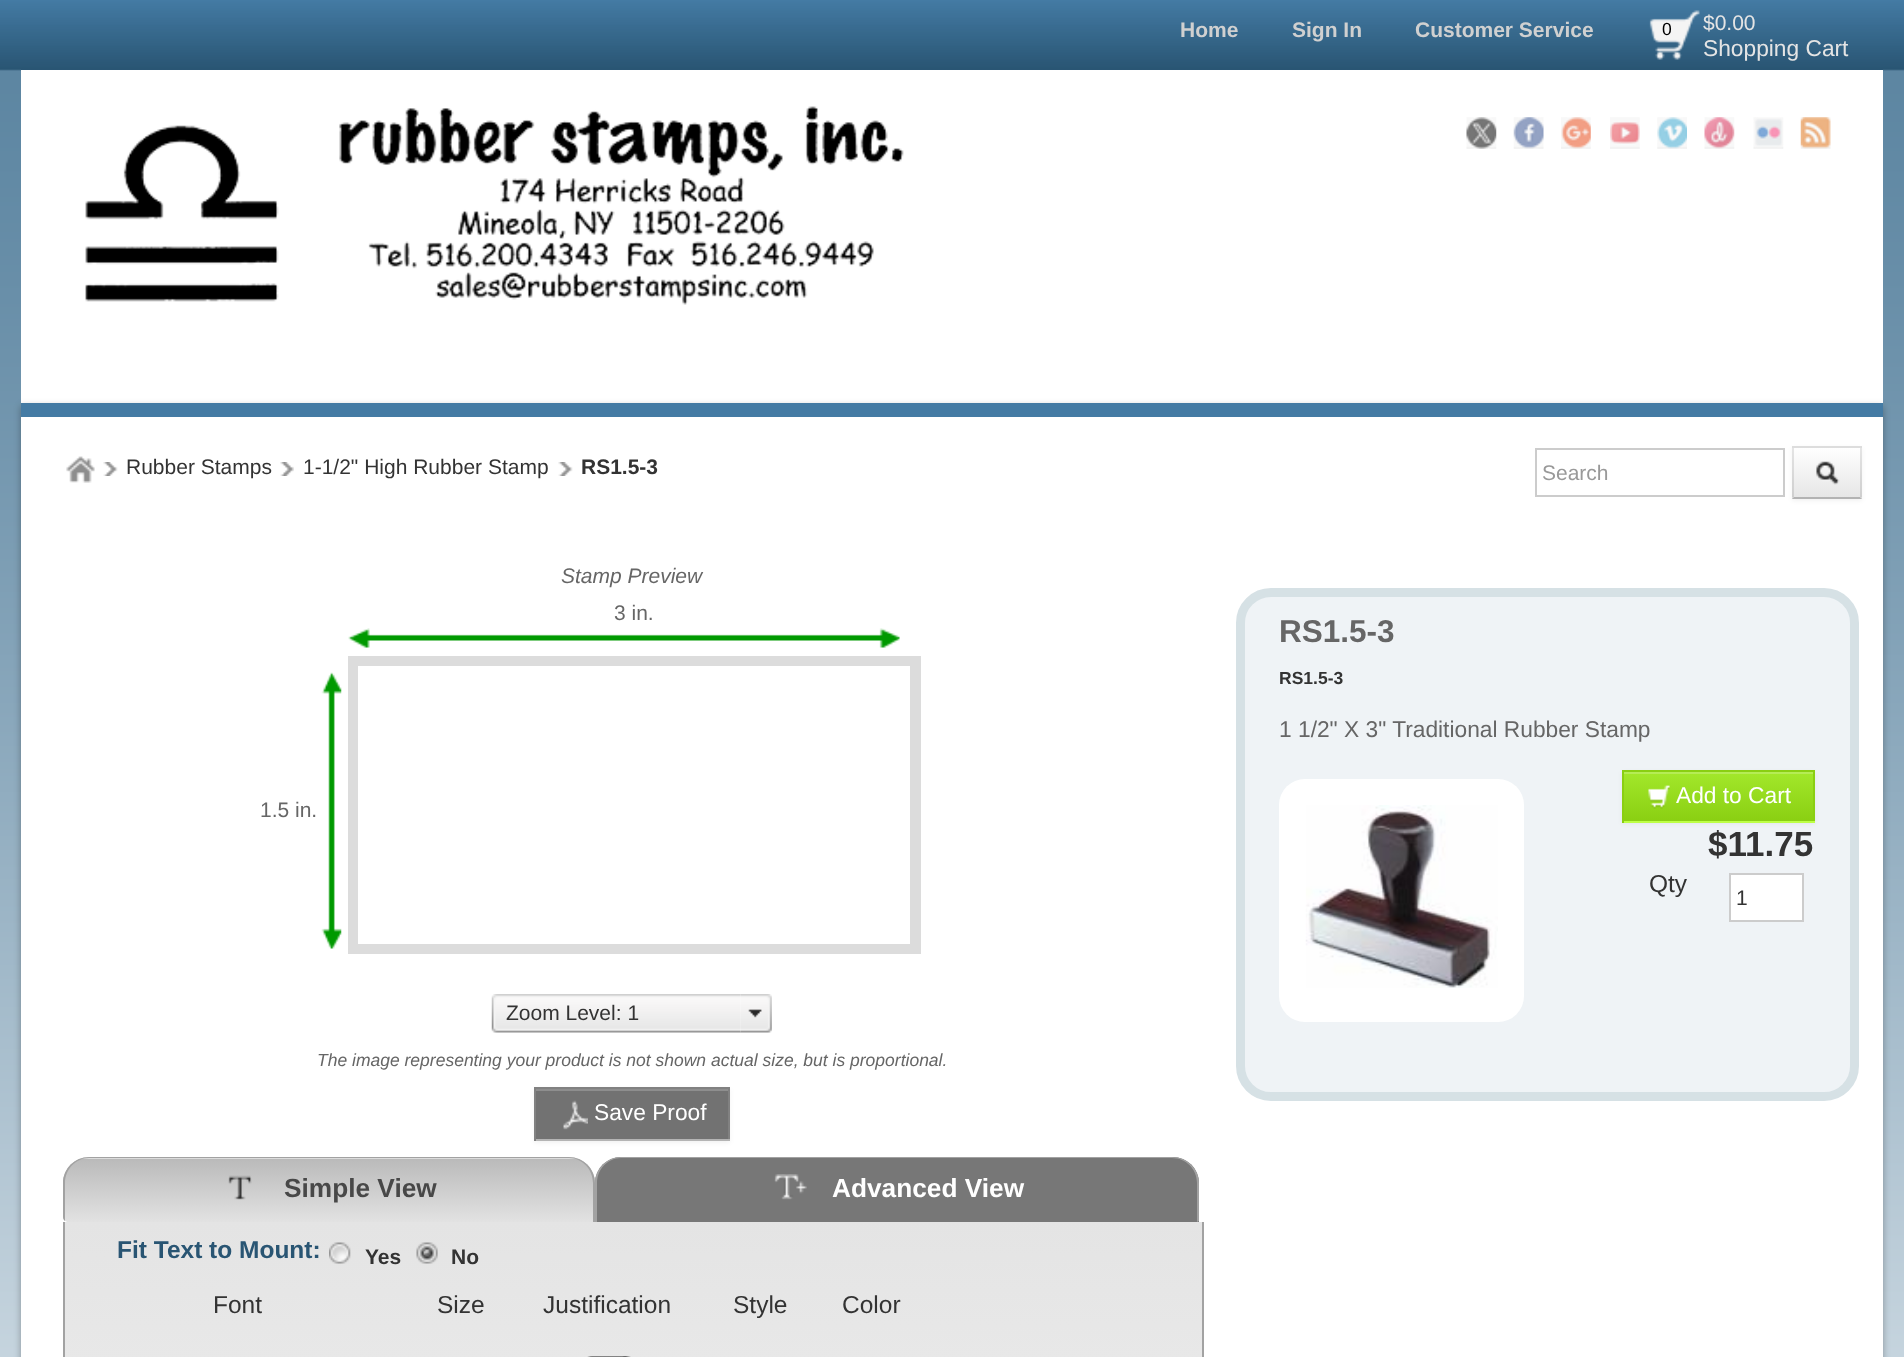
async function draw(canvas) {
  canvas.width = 1904;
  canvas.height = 1357;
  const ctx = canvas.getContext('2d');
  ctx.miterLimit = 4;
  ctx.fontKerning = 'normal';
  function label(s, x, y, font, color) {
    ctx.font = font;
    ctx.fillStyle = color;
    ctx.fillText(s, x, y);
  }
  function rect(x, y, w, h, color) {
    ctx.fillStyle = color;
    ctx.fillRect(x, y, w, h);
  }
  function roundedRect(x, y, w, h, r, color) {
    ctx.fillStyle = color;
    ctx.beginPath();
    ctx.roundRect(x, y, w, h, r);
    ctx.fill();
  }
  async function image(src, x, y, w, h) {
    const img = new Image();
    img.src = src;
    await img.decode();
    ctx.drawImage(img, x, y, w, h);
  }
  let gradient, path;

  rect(0, 0, 1904, 1357, '#fff');
  await image('assets/img1.png', 0, 0, 1904, 1357);
  rect(21, 70, 1862, 1287, '#fff');
  gradient = ctx.createLinearGradient(952, 0, 952, 70);
  gradient.addColorStop(0, '#447ba4');
  gradient.addColorStop(1, '#295573');
  ctx.fillStyle = gradient;
  ctx.fillRect(21, 69, 1862, 1);
  label('Home', 1180, 37, 'bold 21px Liberation Sans', '#d0d0d0');
  label('Sign In', 1292, 37, 'bold 21px Liberation Sans', '#d0d0d0');
  label('Customer Service', 1415, 37, 'bold 21px Liberation Sans', '#d0d0d0');
  await image('assets/img2.png', 1649, 10, 51, 50);
  label('0', 1662, 35, '17.5px Liberation Sans', '#000');
  label('$0.00', 1703, 30, '21px Liberation Sans', '#e4e4e4');
  label('Shopping Cart', 1703, 56, '22.75px Liberation Sans', '#e4e4e4');
  await image('assets/img3.png', 85, 106, 819, 199);
  await image('assets/img4.png', 1466, 117, 31, 32);
  await image('assets/img5.png', 1513, 117, 31, 32);
  await image('assets/img6.png', 1561, 117, 30, 32);
  await image('assets/img7.png', 1610, 117, 30, 32);
  await image('assets/img8.png', 1657, 117, 30, 32);
  await image('assets/img9.png', 1704, 117, 31, 32);
  await image('assets/img10.png', 1753, 117, 31, 32);
  await image('assets/img11.png', 1800, 117, 31, 32);
  ctx.save();
  path = new Path2D('M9 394H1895V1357H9ZM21 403H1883V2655H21Z');
  ctx.clip(path, 'evenodd');
  ctx.fillStyle = '#0000004d';
  ctx.filter = 'blur(3.5px)';
  ctx.beginPath();
  ctx.rect(21, 406, 1862, 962);
  ctx.fill();
  ctx.filter = 'none';
  ctx.restore();
  rect(21, 403, 1862, 14, '#447ba4');
  await image('assets/img12.png', 66, 456, 29, 27);
  await image('assets/img13.png', 103, 462, 15, 14);
  label('Rubber Stamps', 126, 474, '21px Liberation Sans', '#333');
  await image('assets/img14.png', 280, 462, 14, 14);
  label('1-1/2" High Rubber Stamp', 303, 474, '21px Liberation Sans', '#333');
  await image('assets/img15.png', 558, 462, 15, 14);
  label('RS1.5-3', 581, 474, 'bold 21px Liberation Sans', '#333');
  ctx.strokeStyle = '#ccc';
  ctx.lineWidth = 2;
  ctx.strokeRect(1536, 449, 248, 47);
  label('Search', 1542, 480, '21px Liberation Sans', '#999');
  ctx.fillStyle = '#0000000d';
  ctx.filter = 'blur(2px)';
  ctx.beginPath();
  ctx.rect(1792, 448, 70, 53);
  ctx.fill();
  ctx.filter = 'none';
  rect(1792, 446, 70, 53, '#f5f5f5');
  gradient = ctx.createLinearGradient(1827, 448, 1827, 497);
  gradient.addColorStop(0, '#fff');
  gradient.addColorStop(1, '#e6e6e6');
  ctx.fillStyle = gradient;
  ctx.fillRect(1792, 448, 70, 49);
  ctx.fillStyle = '#ddd';
  path = new Path2D('M1792 446H1862L1860 448H1794Z');
  ctx.fill(path);
  ctx.fillStyle = '#0000001a';
  path = new Path2D('M1862 446V499L1860 497V448Z');
  ctx.fill(path);
  ctx.fillStyle = '#b3b3b3';
  path = new Path2D('M1862 499H1792L1794 497H1860Z');
  ctx.fill(path);
  ctx.fillStyle = '#0000001a';
  path = new Path2D('M1792 499V446L1794 448V497Z');
  ctx.fill(path);
  await image('assets/img16.png', 1816, 461, 24, 24);
  label('Stamp Preview', 561, 583, 'italic 21px Liberation Sans', '#666');
  label('3 in.', 614, 620, '21px Liberation Sans', '#666');
  await image('assets/img17.png', 348, 628, 552, 20);
  label('1.5 in.', 260, 817, '21px Liberation Sans', '#666');
  await image('assets/img18.png', 321, 672, 21, 277);
  rect(348, 656, 573, 298, '#dcdcdc');
  rect(358, 666, 552, 278, '#fff');
  await image('assets/img19.png', 491, 994, 250, 39);
  label('Zoom Level: 1', 506, 1020, '21px Liberation Sans', '#333');
  await image('assets/img20.png', 740, 994, 32, 39);
  label('The image representing your product is not shown actual size, but is proportional.', 317, 1066, 'italic 17.5px Liberation Sans', '#666');
  ctx.fillStyle = '#0000000d';
  ctx.filter = 'blur(2px)';
  ctx.beginPath();
  ctx.rect(534, 1089, 196, 54);
  ctx.fill();
  ctx.filter = 'none';
  rect(536, 1091, 192, 48, '#727272');
  rect(536, 1089, 192, 2, '#8e8e8e');
  rect(534, 1087, 196, 2, '#818181');
  rect(728, 1087, 2, 54, '#818181');
  rect(534, 1139, 196, 2, '#b4b4b4');
  rect(534, 1087, 2, 54, '#818181');
  await image('assets/img21.png', 563, 1100, 25, 30);
  label('Save Proof', 594, 1120, '22.75px Liberation Sans', '#fff');
  ctx.save();
  ctx.beginPath();
  ctx.roundRect(63, 1157, 1138, 65, 5);
  ctx.clip();
  ctx.fillStyle = '#dcdcdc';
  ctx.beginPath();
  ctx.roundRect(63, 1157, 532, 65, [26, 26, 0, 5]);
  ctx.fill();
  ctx.restore();
  ctx.save();
  ctx.beginPath();
  ctx.roundRect(63, 1157, 1138, 65, 5);
  ctx.clip();
  ctx.beginPath();
  ctx.roundRect(63, 1157, 532, 65, [26, 26, 0, 0]);
  ctx.clip();
  gradient = ctx.createLinearGradient(329, 1159, 329, 1222);
  gradient.addColorStop(0, '#bababa');
  gradient.addColorStop(1, '#e2e2e2');
  ctx.fillStyle = gradient;
  ctx.beginPath();
  ctx.roundRect(63, 1159, 532, 63, [0, 0, 0, 5]);
  ctx.fill();
  ctx.restore();
  ctx.fillStyle = '#a2a2a2';
  path = new Path2D('M89 1157C75 1157 63 1169 63 1183V1217C63 1219 64 1220 65 1221V1183C65 1169 76 1158 89 1158H569C582 1158 593 1169 593 1183V1222H595V1183C595 1169 583 1157 569 1157Z');
  ctx.fill(path);
  await image('assets/img22.png', 228, 1175, 24, 25);
  label('Simple View', 284, 1197, 'bold 26.25px Liberation Sans', '#484848');
  ctx.fillStyle = '#777';
  ctx.beginPath();
  ctx.roundRect(595, 1157, 604, 65, [26, 26, 0, 0]);
  ctx.fill();
  ctx.fillStyle = '#a2a2a2';
  path = new Path2D('M621 1157C607 1157 595 1169 595 1183V1222H597V1183C597 1169 608 1158 621 1158H1172C1186 1158 1197 1169 1197 1183V1222L1199 1221V1183C1199 1169 1187 1157 1172 1157Z');
  ctx.fill(path);
  await image('assets/img23.png', 774, 1174, 33, 26);
  label('Advanced View', 832, 1197, 'bold 26.25px Liberation Sans', '#fff');
  gradient = ctx.createLinearGradient(633, 1222, 634, 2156);
  gradient.addColorStop(0, '#e4e4e4');
  gradient.addColorStop(1, '#fff');
  ctx.fillStyle = gradient;
  ctx.fillRect(65, 1222, 1137, 135);
  rect(1202, 1222, 2, 135, '#a2a2a2');
  rect(63, 1222, 2, 135, '#a2a2a2');
  label('Fit Text to Mount:', 117, 1258, 'bold 24.5px Liberation Sans', '#295573');
  await image('assets/img24.png', 329, 1242, 22, 22);
  label('Yes', 365, 1264, 'bold 21px Liberation Sans', '#333');
  await image('assets/img25.png', 416, 1242, 22, 22);
  label('No', 451, 1264, 'bold 21px Liberation Sans', '#333');
  label('Font', 213, 1313, '24.5px Liberation Sans', '#333');
  label('Size', 437, 1313, '24.5px Liberation Sans', '#333');
  label('Justification', 543, 1313, '24.5px Liberation Sans', '#333');
  label('Style', 733, 1313, '24.5px Liberation Sans', '#333');
  label('Color', 842, 1313, '24.5px Liberation Sans', '#333');
  await image('assets/img26.png', 622, 1356, 9, 1);
  await image('assets/img27.png', 587, 1356, 40, 1);
  ctx.fillStyle = '#eff3f6';
  ctx.beginPath();
  ctx.roundRect(1240.5, 592.5, 614, 504, 30.5);
  ctx.fill();
  ctx.strokeStyle = '#d6e1e5';
  ctx.lineWidth = 9;
  ctx.stroke();
  label('RS1.5-3', 1279, 642, 'bold 31.5px Liberation Sans', '#666');
  label('RS1.5-3', 1279, 684, 'bold 17.5px Liberation Sans', '#333');
  label('1 1/2" X 3" Traditional Rubber Stamp', 1279, 737, '22.75px Liberation Sans', '#666');
  roundedRect(1279, 779, 245, 243, 26, '#fff');
  await image('assets/img28.png', 1305, 805, 193, 183);
  ctx.fillStyle = '#0000000d';
  ctx.filter = 'blur(2px)';
  ctx.beginPath();
  ctx.rect(1622, 772, 193, 52);
  ctx.fill();
  ctx.filter = 'none';
  gradient = ctx.createLinearGradient(1719, 772, 1719, 821);
  gradient.addColorStop(0, '#a3e82b');
  gradient.addColorStop(1, '#8acf12');
  ctx.fillStyle = gradient;
  ctx.fillRect(1624, 774, 189, 47);
  rect(1624, 772, 189, 2, '#b5ec55');
  rect(1622, 770, 193, 2, '#8acf12');
  rect(1813, 770, 2, 53, '#8acf12');
  rect(1622, 821, 193, 2, '#bdff45');
  rect(1622, 770, 2, 53, '#8acf12');
  await image('assets/img29.png', 1648, 785, 22, 24);
  label('Add to Cart', 1676, 803, '22.75px Liberation Sans', '#fff');
  label('$11.75', 1708, 856, 'bold 35px Liberation Sans', '#333');
  label('Qty', 1649, 892, '24.5px Liberation Sans', '#333');
  ctx.fillStyle = '#fff';
  ctx.beginPath();
  ctx.rect(1730, 874, 73, 47);
  ctx.fill();
  ctx.strokeStyle = '#ccc';
  ctx.lineWidth = 2;
  ctx.stroke();
  label('1', 1736, 905, '21px Liberation Sans', '#333');
}

draw(document.querySelector('canvas'));
